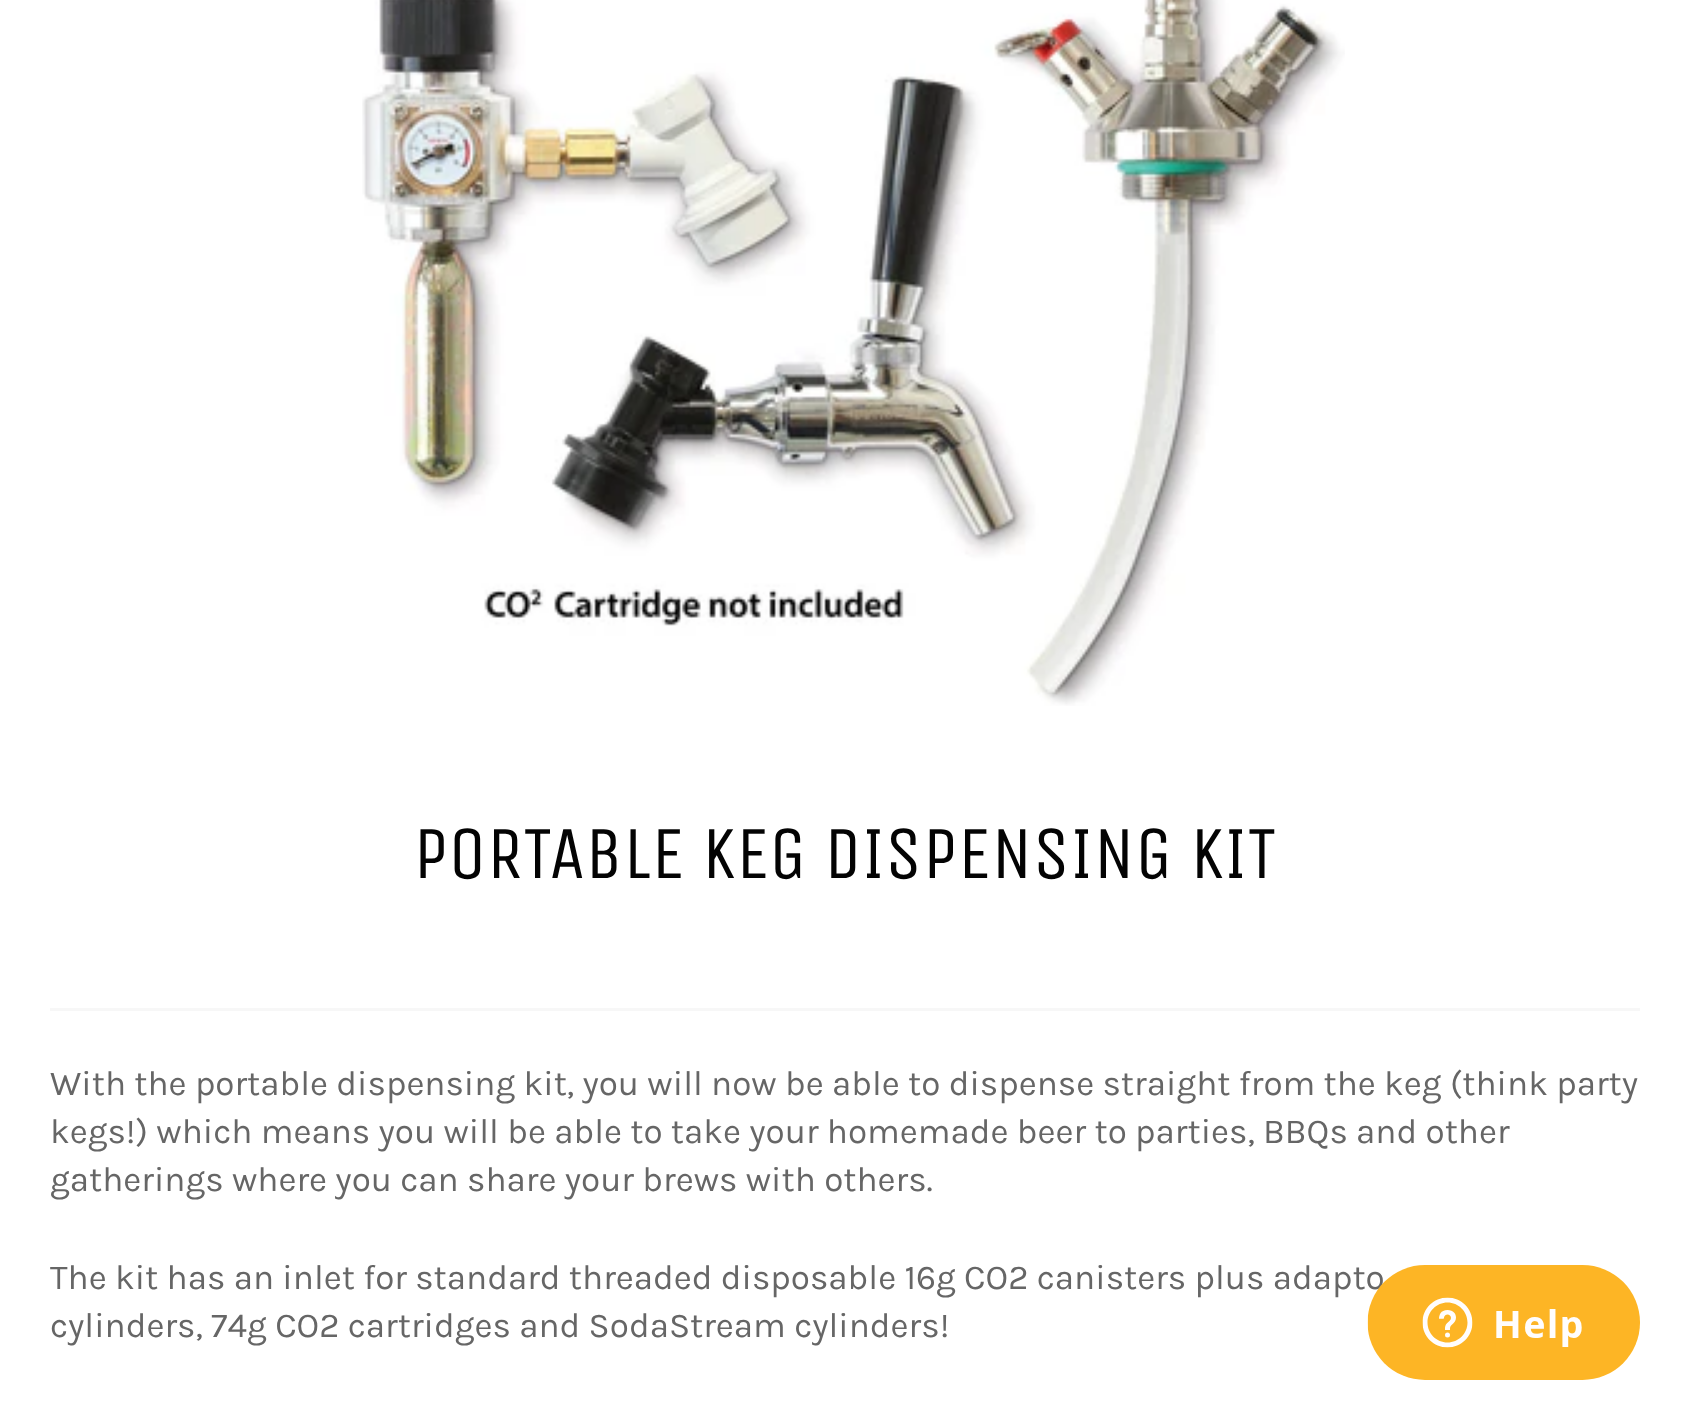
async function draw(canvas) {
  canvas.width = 1690;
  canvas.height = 1414;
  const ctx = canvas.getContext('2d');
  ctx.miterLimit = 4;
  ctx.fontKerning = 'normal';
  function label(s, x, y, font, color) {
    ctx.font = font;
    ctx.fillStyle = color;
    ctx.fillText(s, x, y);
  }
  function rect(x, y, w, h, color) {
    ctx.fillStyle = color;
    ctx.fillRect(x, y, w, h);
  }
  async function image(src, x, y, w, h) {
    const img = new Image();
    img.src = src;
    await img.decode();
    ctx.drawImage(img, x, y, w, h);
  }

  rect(0, 0, 1690, 1414, '#fff');
  await image('assets/img1.png', 362, 0, 983, 706);
  label('PORTABLE KEG DISPENSING KIT', 413, 878, '75px Unica One', '#030303');
  rect(50, 1008, 1590, 3, '#f7f7f7');
  label('With the portable dispensing kit, you will now be able to dispense straight from the keg (think party', 50, 1095, '35px Karla', '#666');
  label('kegs!) which means you will be able to take your homemade beer to parties, BBQs and other', 50, 1143, '35px Karla', '#666');
  label('gatherings where you can share your brews with others.', 50, 1191, '35px Karla', '#666');
  label('The kit has an inlet for standard threaded disposable 16g CO2 canisters plus adapto', 50, 1289, '35px Karla', '#666');
  label('cylinders, 74g CO2 cartridges and SodaStream cylinders!', 50, 1337, '35px Karla', '#666');
  await image('assets/img2.png', 1367, 1265, 273, 115);
}

draw(document.querySelector('canvas'));
